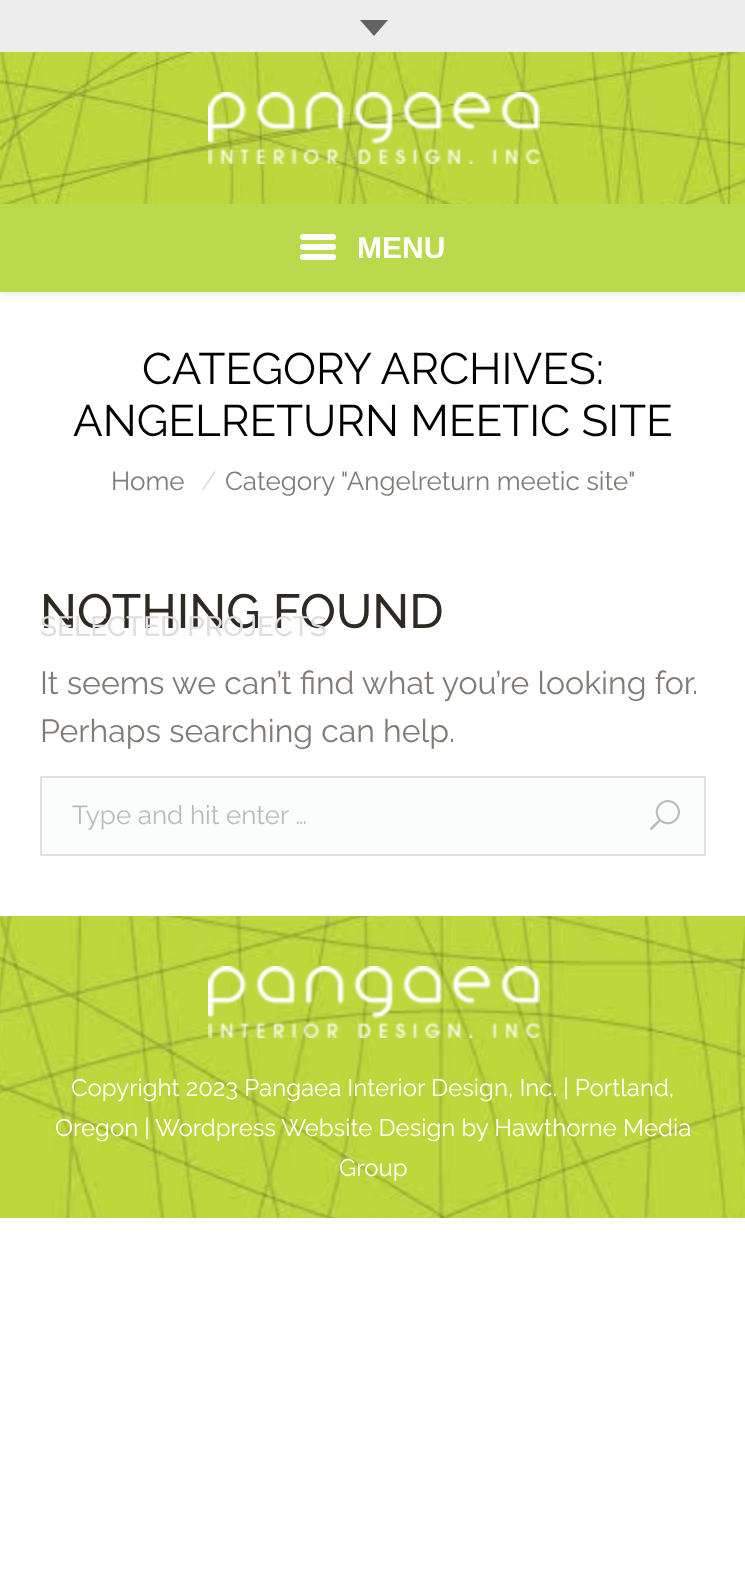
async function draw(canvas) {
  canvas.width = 745;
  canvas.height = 1582;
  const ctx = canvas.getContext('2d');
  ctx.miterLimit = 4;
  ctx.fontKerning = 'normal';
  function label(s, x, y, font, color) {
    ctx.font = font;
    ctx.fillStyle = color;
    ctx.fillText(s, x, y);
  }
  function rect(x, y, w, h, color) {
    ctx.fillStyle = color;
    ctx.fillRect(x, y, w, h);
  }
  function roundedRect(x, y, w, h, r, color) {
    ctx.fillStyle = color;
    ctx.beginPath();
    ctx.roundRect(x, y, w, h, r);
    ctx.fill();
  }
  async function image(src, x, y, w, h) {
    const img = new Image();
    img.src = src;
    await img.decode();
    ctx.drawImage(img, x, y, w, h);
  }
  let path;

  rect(0, 0, 745, 1582, '#fff');
  ctx.fillStyle = '#00000026';
  ctx.filter = 'blur(4px)';
  ctx.beginPath();
  ctx.rect(0, -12, 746, 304);
  ctx.fill();
  ctx.filter = 'none';
  await image('assets/img1.png', 0, 52, 745, 152);
  rect(0, 0, 745, 52, '#ededed');
  ctx.fillStyle = '#636363';
  path = new Path2D('M360 20H388L374 36Z');
  ctx.fill(path);
  await image('assets/img2.png', 208, 92, 332, 72);
  rect(0, 204, 745, 88, '#bbd94d');
  roundedRect(300, 244, 36, 6, 3, '#fff');
  roundedRect(300, 234, 36, 6, 3, '#fff');
  roundedRect(300, 254, 36, 6, 3, '#fff');
  label('MENU', 357, 258, 'bold 30px Liberation Sans', '#fff');
  label('NOTHING FOUND', 40, 628, '500 48px Raleway', '#2e2923');
  label('SELECTED PROJECTS', 40, 636, '500 28px Raleway', '#e0dedd');
  label('CATEGORY ARCHIVES:', 142, 384, '44px Raleway', '#000');
  label('ANGELRETURN MEETIC SITE', 73, 436, '44px Raleway', '#000');
  label('Home', 111, 490, '26px Raleway', '#817a75');
  label('/', 201, 490, '26px Raleway', '#e0dedd');
  label('Category "Angelreturn meetic site"', 225, 490, '26px Raleway', '#817a75');
  label('It seems we can’t find what you’re looking for.', 40, 694, '32px Raleway', '#817a75');
  label('Perhaps searching can help.', 40, 742, '32px Raleway', '#817a75');
  ctx.fillStyle = '#fbfcfc';
  ctx.beginPath();
  ctx.rect(41, 777, 664, 78);
  ctx.fill();
  ctx.strokeStyle = '#e0e1e1';
  ctx.lineWidth = 2;
  ctx.stroke();
  label('Type and hit enter …', 72, 824, '26px Raleway', '#b8bcbe');
  await image('assets/img3.png', 650, 800, 30, 30);
  await image('assets/img4.png', 0, 916, 745, 302);
  await image('assets/img5.png', 208, 966, 332, 72);
  label('Copyright 2023 Pangaea Interior Design, Inc. | Portland,', 71, 1096, '24px Raleway', '#fff');
  label('Oregon |', 55, 1136, '24px Raleway', '#fff');
  label('Wordpress Website Design by Hawthorne Media', 155, 1136, '24px Raleway', '#fff');
  label('Group', 339, 1176, '24px Raleway', '#fff');
}

draw(document.querySelector('canvas'));
